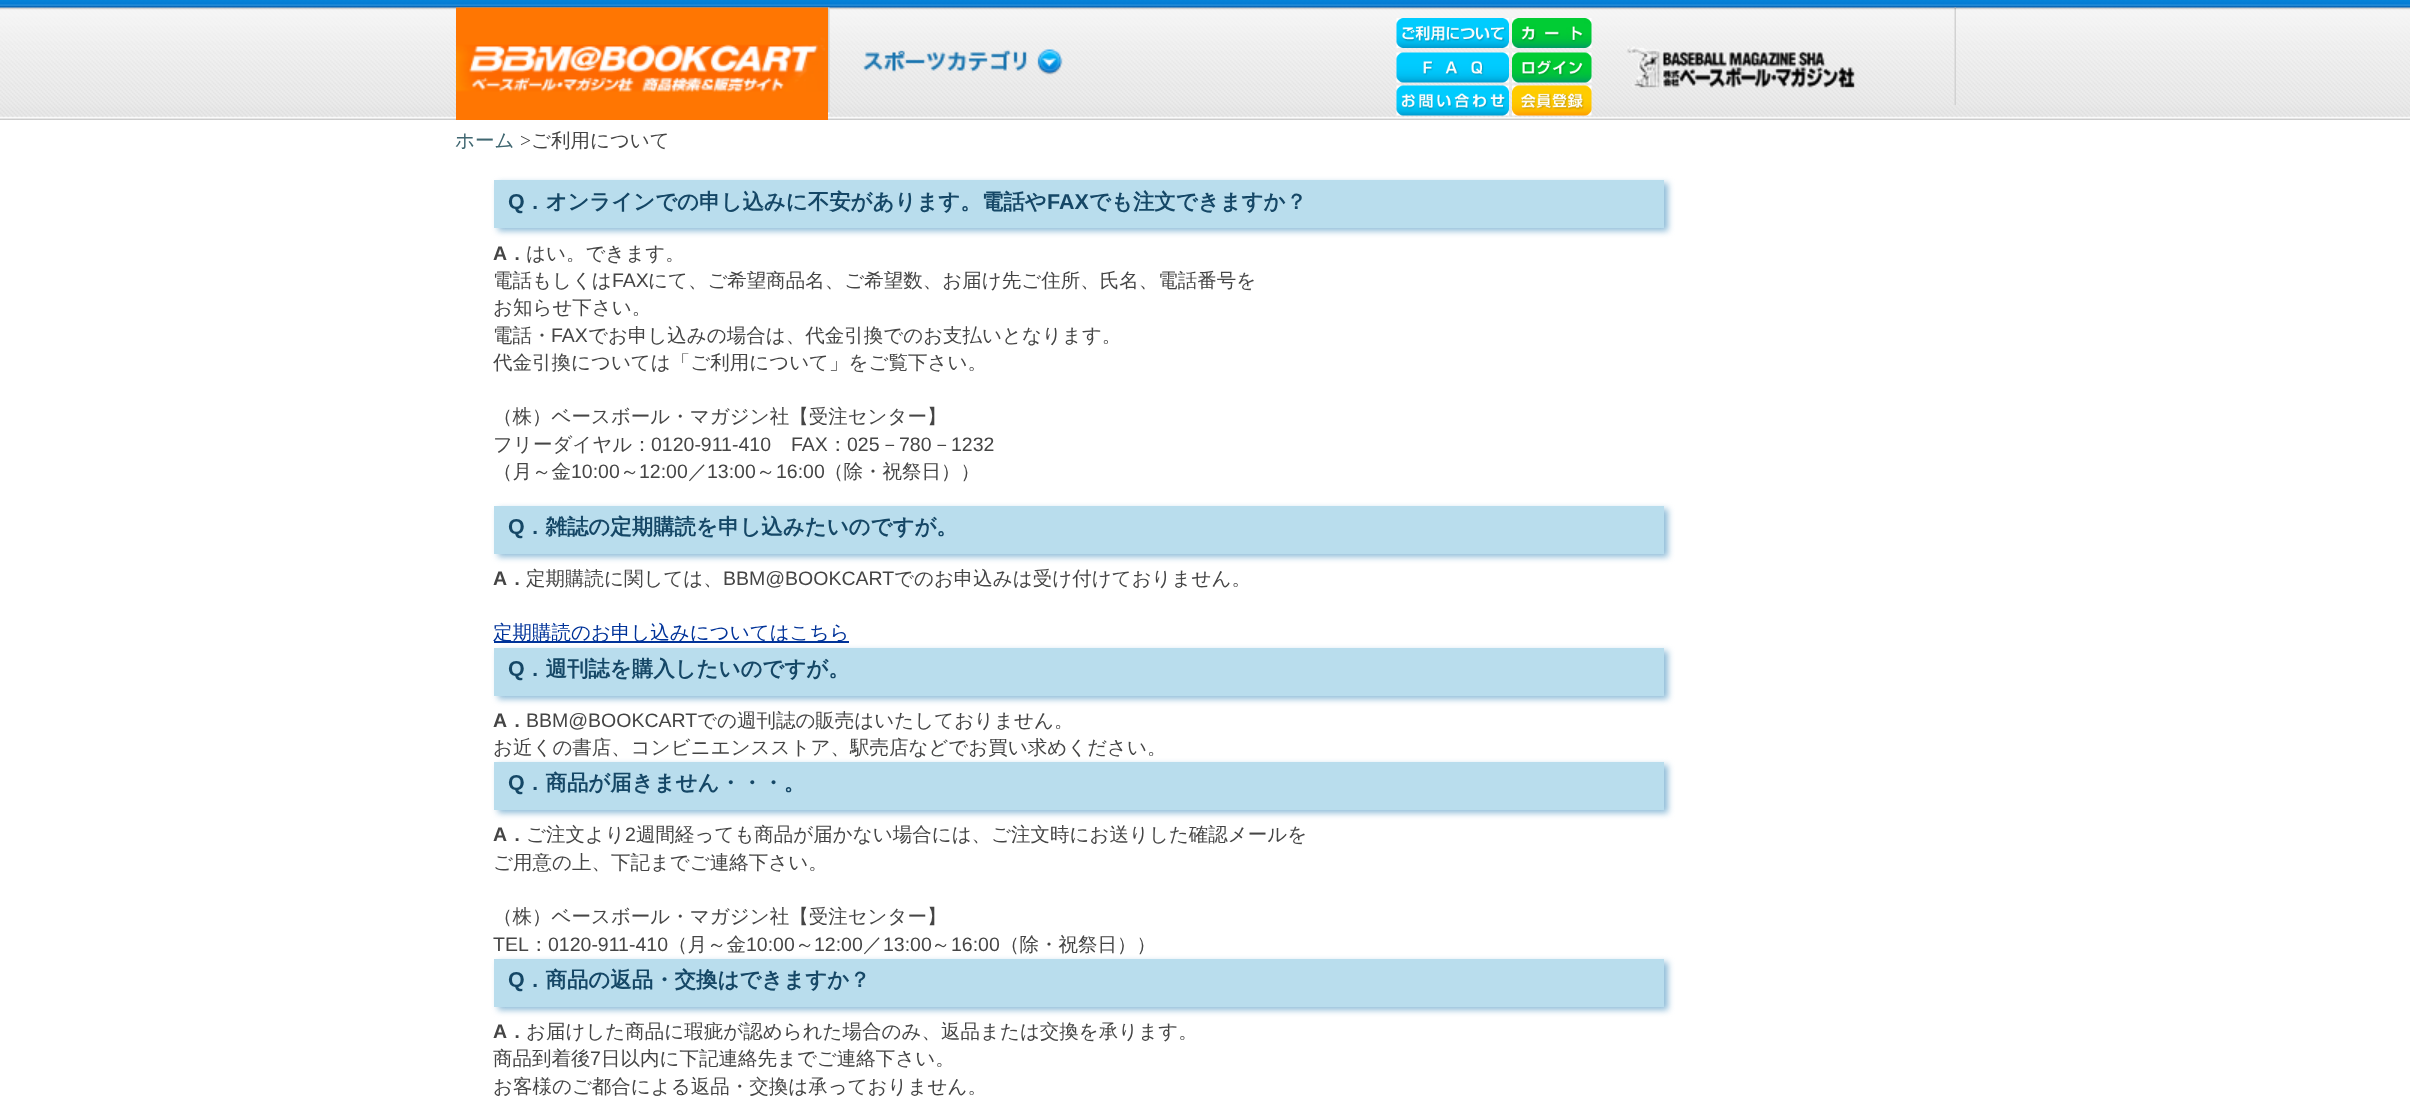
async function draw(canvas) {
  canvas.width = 2410;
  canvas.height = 1113;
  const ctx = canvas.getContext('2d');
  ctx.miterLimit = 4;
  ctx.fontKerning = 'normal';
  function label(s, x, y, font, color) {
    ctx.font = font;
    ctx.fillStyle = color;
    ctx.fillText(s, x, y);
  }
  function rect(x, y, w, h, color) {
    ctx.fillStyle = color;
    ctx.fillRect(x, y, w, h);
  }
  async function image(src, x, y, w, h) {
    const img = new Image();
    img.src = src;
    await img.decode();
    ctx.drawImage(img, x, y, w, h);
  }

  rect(0, 0, 2410, 1113, '#fff');
  await image('assets/img1.png', 0, 0, 2410, 120);
  await image('assets/img2.png', 456, 7, 372, 113);
  await image('assets/img3.png', 828, 7, 235, 108);
  await image('assets/img4.png', 1954, 7, 2, 98);
  await image('assets/img5.png', 1396, 18, 113, 30);
  await image('assets/img6.png', 1512, 18, 80, 30);
  await image('assets/img7.png', 1627, 46, 228, 42);
  await image('assets/img8.png', 1396, 52, 113, 31);
  await image('assets/img9.png', 1512, 52, 80, 31);
  await image('assets/img10.png', 1396, 85, 113, 31);
  await image('assets/img11.png', 1512, 85, 80, 31);
  label('ホーム', 455, 147, '500 19.5px WenQuanYi Zen Hei', '#406771');
  label('>', 520, 147, '19.5px Liberation Serif', '#454545');
  label('ご利用について', 531, 147, '500 19.5px WenQuanYi Zen Hei', '#454545');
  ctx.fillStyle = '#8fbcd8';
  ctx.filter = 'blur(3px)';
  ctx.beginPath();
  ctx.rect(498, 183, 1170, 48);
  ctx.fill();
  ctx.filter = 'none';
  rect(494, 180, 1170, 48, '#b9dded');
  label('Q', 508, 209, 'bold 21.45px Liberation Sans', '#154766');
  label('．オンラインでの申し込みに不安があります。電話や', 524, 209, 'bold 21.45px WenQuanYi Zen Hei', '#154766');
  label('FAX', 1047, 209, 'bold 21.45px Liberation Sans', '#154766');
  label('でも注文できますか？', 1089, 209, 'bold 21.45px WenQuanYi Zen Hei', '#154766');
  label('A', 493, 260, 'bold 19.5px Liberation Sans', '#454545');
  label('．', 507, 260, 'bold 19.5px WenQuanYi Zen Hei', '#454545');
  label('はい。できます。', 526, 260, '500 19.5px WenQuanYi Zen Hei', '#454545');
  label('電話もしくは', 493, 287, '500 19.5px WenQuanYi Zen Hei', '#454545');
  label('FAX', 612, 287, '19.5px Liberation Sans', '#454545');
  label('にて、ご希望商品名、ご希望数、お届け先ご住所、氏名、電話番号を', 648, 287, '500 19.5px WenQuanYi Zen Hei', '#454545');
  label('お知らせ下さい。', 493, 314, '500 19.5px WenQuanYi Zen Hei', '#454545');
  label('電話・', 493, 342, '500 19.5px WenQuanYi Zen Hei', '#454545');
  label('FAX', 551, 342, '19.5px Liberation Sans', '#454545');
  label('でお申し込みの場合は、代金引換でのお支払いとなります。', 588, 342, '500 19.5px WenQuanYi Zen Hei', '#454545');
  label('代金引換については「ご利用について」をご覧下さい。', 493, 369, '500 19.5px WenQuanYi Zen Hei', '#454545');
  label('（株）ベースボール・マガジン社【受注センター】', 493, 423, '500 19.5px WenQuanYi Zen Hei', '#454545');
  label('フリーダイヤル：', 493, 451, '500 19.5px WenQuanYi Zen Hei', '#454545');
  label('0120-911-410', 651, 451, '19.5px Liberation Sans', '#454545');
  label('FAX', 791, 451, '19.5px Liberation Sans', '#454545');
  label('：', 828, 451, '500 19.5px WenQuanYi Zen Hei', '#454545');
  label('025', 847, 451, '19.5px Liberation Sans', '#454545');
  label('－', 880, 451, '500 19.5px WenQuanYi Zen Hei', '#454545');
  label('780', 899, 451, '19.5px Liberation Sans', '#454545');
  label('－', 932, 451, '500 19.5px WenQuanYi Zen Hei', '#454545');
  label('1232', 951, 451, '19.5px Liberation Sans', '#454545');
  label('（月～金', 493, 478, '500 19.5px WenQuanYi Zen Hei', '#454545');
  label('10:00', 571, 478, '19.5px Liberation Sans', '#454545');
  label('～', 620, 478, '500 19.5px WenQuanYi Zen Hei', '#454545');
  label('12:00', 639, 478, '19.5px Liberation Sans', '#454545');
  label('／', 688, 478, '500 19.5px WenQuanYi Zen Hei', '#454545');
  label('13:00', 707, 478, '19.5px Liberation Sans', '#454545');
  label('～', 756, 478, '500 19.5px WenQuanYi Zen Hei', '#454545');
  label('16:00', 776, 478, '19.5px Liberation Sans', '#454545');
  label('（除・祝祭日））', 824, 478, '500 19.5px WenQuanYi Zen Hei', '#454545');
  ctx.fillStyle = '#8fbcd8';
  ctx.filter = 'blur(3px)';
  ctx.beginPath();
  ctx.rect(498, 509, 1170, 48);
  ctx.fill();
  ctx.filter = 'none';
  rect(494, 506, 1170, 48, '#b9dded');
  label('Q', 508, 534, 'bold 21.45px Liberation Sans', '#154766');
  label('．雑誌の定期購読を申し込みたいのですが。', 524, 534, 'bold 21.45px WenQuanYi Zen Hei', '#154766');
  label('A', 493, 585, 'bold 19.5px Liberation Sans', '#454545');
  label('．', 507, 585, 'bold 19.5px WenQuanYi Zen Hei', '#454545');
  label('定期購読に関しては、', 526, 585, '500 19.5px WenQuanYi Zen Hei', '#454545');
  label('BBM@BOOKCART', 723, 585, '19.5px Liberation Sans', '#454545');
  label('でのお申込みは受け付けておりません。', 894, 585, '500 19.5px WenQuanYi Zen Hei', '#454545');
  ctx.fillStyle = '#8fbcd8';
  ctx.filter = 'blur(3px)';
  ctx.beginPath();
  ctx.rect(498, 651, 1170, 48);
  ctx.fill();
  ctx.filter = 'none';
  rect(494, 641, 355, 2, '#039');
  label('定期購読のお申し込みについてはこちら', 493, 639, '500 19.5px WenQuanYi Zen Hei', '#039');
  rect(494, 648, 1170, 48, '#b9dded');
  label('Q', 508, 676, 'bold 21.45px Liberation Sans', '#154766');
  label('．週刊誌を購入したいのですが。', 524, 676, 'bold 21.45px WenQuanYi Zen Hei', '#154766');
  label('A', 493, 727, 'bold 19.5px Liberation Sans', '#454545');
  label('．', 507, 727, 'bold 19.5px WenQuanYi Zen Hei', '#454545');
  label('BBM@BOOKCART', 526, 727, '19.5px Liberation Sans', '#454545');
  label('での週刊誌の販売はいたしておりません。', 697, 727, '500 19.5px WenQuanYi Zen Hei', '#454545');
  ctx.fillStyle = '#8fbcd8';
  ctx.filter = 'blur(3px)';
  ctx.beginPath();
  ctx.rect(498, 765, 1170, 48);
  ctx.fill();
  ctx.filter = 'none';
  label('お近くの書店、コンビニエンスストア、駅売店などでお買い求めください。', 493, 754, '500 19.5px WenQuanYi Zen Hei', '#454545');
  rect(494, 762, 1170, 48, '#b9dded');
  label('Q', 508, 790, 'bold 21.45px Liberation Sans', '#154766');
  label('．商品が届きません・・・。', 524, 790, 'bold 21.45px WenQuanYi Zen Hei', '#154766');
  label('A', 493, 841, 'bold 19.5px Liberation Sans', '#454545');
  label('．', 507, 841, 'bold 19.5px WenQuanYi Zen Hei', '#454545');
  label('ご注文より', 526, 841, '500 19.5px WenQuanYi Zen Hei', '#454545');
  label('2', 625, 841, '19.5px Liberation Sans', '#454545');
  label('週間経っても商品が届かない場合には、ご注文時にお送りした確認メールを', 636, 841, '500 19.5px WenQuanYi Zen Hei', '#454545');
  label('ご用意の上、下記までご連絡下さい。', 493, 869, '500 19.5px WenQuanYi Zen Hei', '#454545');
  label('（株）ベースボール・マガジン社【受注センター】', 493, 923, '500 19.5px WenQuanYi Zen Hei', '#454545');
  label('TEL', 493, 951, '19.5px Liberation Sans', '#454545');
  label('：', 529, 951, '500 19.5px WenQuanYi Zen Hei', '#454545');
  label('0120-911-410', 548, 951, '19.5px Liberation Sans', '#454545');
  ctx.fillStyle = '#8fbcd8';
  ctx.filter = 'blur(3px)';
  ctx.beginPath();
  ctx.rect(498, 962, 1170, 48);
  ctx.fill();
  ctx.filter = 'none';
  label('（月～金', 668, 951, '500 19.5px WenQuanYi Zen Hei', '#454545');
  label('10:00', 746, 951, '19.5px Liberation Sans', '#454545');
  label('～', 795, 951, '500 19.5px WenQuanYi Zen Hei', '#454545');
  label('12:00', 814, 951, '19.5px Liberation Sans', '#454545');
  label('／', 863, 951, '500 19.5px WenQuanYi Zen Hei', '#454545');
  label('13:00', 883, 951, '19.5px Liberation Sans', '#454545');
  label('～', 931, 951, '500 19.5px WenQuanYi Zen Hei', '#454545');
  label('16:00', 951, 951, '19.5px Liberation Sans', '#454545');
  label('（除・祝祭日））', 1000, 951, '500 19.5px WenQuanYi Zen Hei', '#454545');
  rect(494, 959, 1170, 48, '#b9dded');
  label('Q', 508, 987, 'bold 21.45px Liberation Sans', '#154766');
  label('．商品の返品・交換はできますか？', 524, 987, 'bold 21.45px WenQuanYi Zen Hei', '#154766');
  label('A', 493, 1038, 'bold 19.5px Liberation Sans', '#454545');
  label('．', 507, 1038, 'bold 19.5px WenQuanYi Zen Hei', '#454545');
  label('お届けした商品に瑕疵が認められた場合のみ、返品または交換を承ります。', 526, 1038, '500 19.5px WenQuanYi Zen Hei', '#454545');
  label('商品到着後', 493, 1065, '500 19.5px WenQuanYi Zen Hei', '#454545');
  label('7', 590, 1065, '19.5px Liberation Sans', '#454545');
  label('日以内に下記連絡先までご連絡下さい。', 601, 1065, '500 19.5px WenQuanYi Zen Hei', '#454545');
  label('お客様のご都合による返品・交換は承っておりません。', 493, 1093, '500 19.5px WenQuanYi Zen Hei', '#454545');
}

draw(document.querySelector('canvas'));
